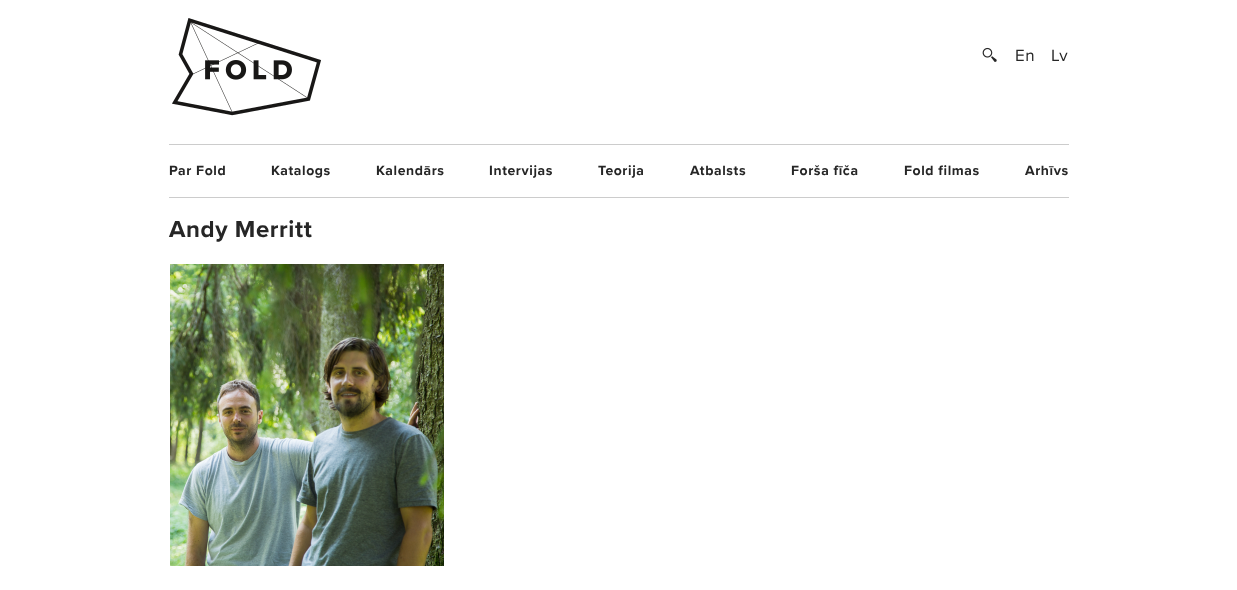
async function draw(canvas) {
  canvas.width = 1237;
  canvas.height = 590;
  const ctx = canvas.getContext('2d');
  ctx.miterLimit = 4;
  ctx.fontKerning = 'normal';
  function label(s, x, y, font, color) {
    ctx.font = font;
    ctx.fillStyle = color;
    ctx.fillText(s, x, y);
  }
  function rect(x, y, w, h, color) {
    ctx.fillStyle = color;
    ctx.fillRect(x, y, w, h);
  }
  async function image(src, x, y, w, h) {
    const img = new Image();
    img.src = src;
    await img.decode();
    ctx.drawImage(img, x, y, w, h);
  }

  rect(0, 0, 1237, 590, '#fff');
  await image('assets/img1.png', 172, 18, 149, 98);
  await image('assets/img2.png', 205, 60, 87, 20);
  await image('assets/img3.png', 982, 47, 15, 15);
  ctx.letterSpacing = '0.6px';
  label('En', 1015, 61, '17px Proxima Nova', '#262626');
  label('Lv', 1051, 61, '17px Proxima Nova', '#262626');
  rect(169, 144, 900, 1, '#ccc');
  rect(169, 197, 900, 1, '#ccc');
  label('Par Fold', 169, 175, 'bold 14px Proxima Nova', '#262626');
  label('Katalogs', 271, 175, 'bold 14px Proxima Nova', '#262626');
  label('Kalendārs', 376, 175, 'bold 14px Proxima Nova', '#262626');
  label('Intervijas', 489, 175, 'bold 14px Proxima Nova', '#262626');
  label('Teorija', 598, 175, 'bold 14px Proxima Nova', '#262626');
  label('Atbalsts', 690, 175, 'bold 14px Proxima Nova', '#262626');
  label('Forša fīča', 791, 175, 'bold 14px Proxima Nova', '#262626');
  label('Fold filmas', 904, 175, 'bold 14px Proxima Nova', '#262626');
  label('Arhīvs', 1025, 175, 'bold 14px Proxima Nova', '#262626');
  label('Andy Merritt', 169, 237, 'bold 24px Proxima Nova', '#262626');
  await image('assets/img4.png', 170, 264, 274, 302);
}

draw(document.querySelector('canvas'));
